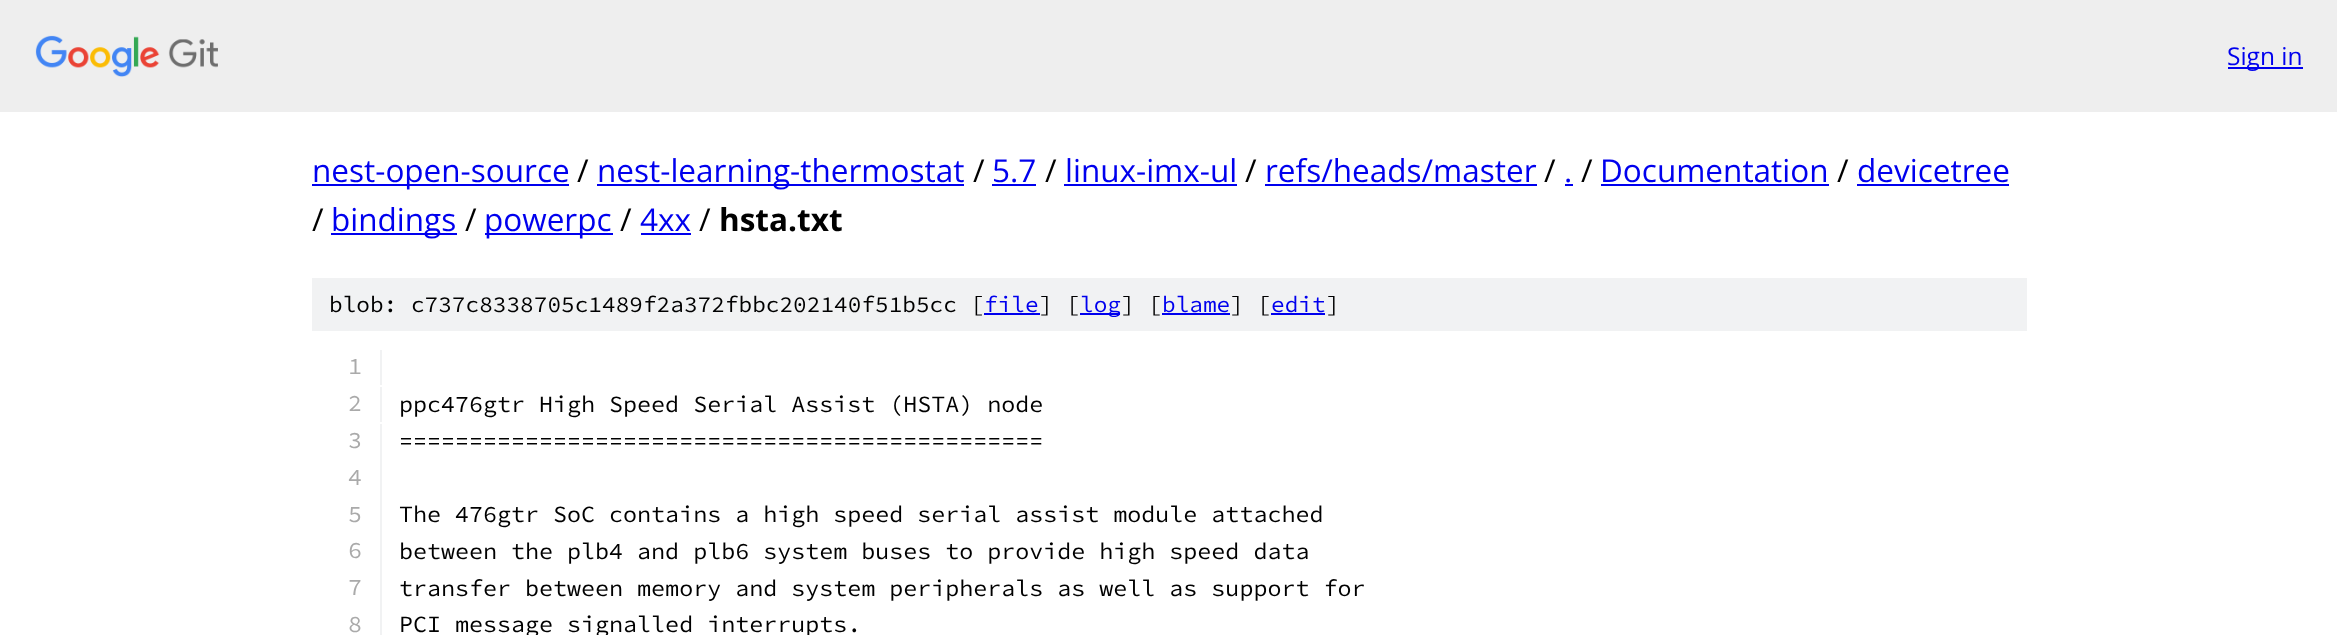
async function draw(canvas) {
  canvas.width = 2337;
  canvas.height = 635;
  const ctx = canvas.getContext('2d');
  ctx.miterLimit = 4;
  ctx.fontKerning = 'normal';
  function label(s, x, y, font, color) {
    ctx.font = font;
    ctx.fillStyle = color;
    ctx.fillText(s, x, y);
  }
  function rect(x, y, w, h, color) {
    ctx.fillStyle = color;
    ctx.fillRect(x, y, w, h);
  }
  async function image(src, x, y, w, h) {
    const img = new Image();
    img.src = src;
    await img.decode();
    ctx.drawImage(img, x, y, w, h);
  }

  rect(0, 0, 2337, 635, '#fff');
  rect(0, 0, 2337, 112, '#eee');
  await image('assets/img1.png', 35, 35, 183, 42);
  rect(2228, 67, 75, 2, '#00e');
  label('Sign in', 2227, 65, '24.5px Open Sans', '#00e');
  rect(312, 184, 257, 2, '#00e');
  label('nest-open-source', 312, 182, '31.5px Open Sans', '#00e');
  label('/', 577, 182, '31.5px Open Sans', '#000');
  rect(597, 184, 367, 2, '#00e');
  label('nest-learning-thermostat', 597, 182, '31.5px Open Sans', '#00e');
  label('/', 973, 182, '31.5px Open Sans', '#000');
  label('5.7', 992, 182, '31.5px Open Sans', '#00e');
  rect(992, 184, 44, 2, '#00e');
  label('/', 1045, 182, '31.5px Open Sans', '#000');
  label('linux-imx-ul', 1065, 182, '31.5px Open Sans', '#00e');
  rect(1064, 184, 173, 2, '#00e');
  label('/', 1245, 182, '31.5px Open Sans', '#000');
  label('refs/heads/master', 1265, 182, '31.5px Open Sans', '#00e');
  rect(1265, 184, 272, 2, '#00e');
  label('/', 1544, 182, '31.5px Open Sans', '#000');
  label('.', 1564, 182, '31.5px Open Sans', '#00e');
  rect(1565, 184, 8, 2, '#00e');
  label('/', 1581, 182, '31.5px Open Sans', '#000');
  label('Documentation', 1600, 182, '31.5px Open Sans', '#00e');
  rect(1601, 184, 228, 2, '#00e');
  label('/', 1837, 182, '31.5px Open Sans', '#000');
  label('devicetree', 1857, 182, '31.5px Open Sans', '#00e');
  rect(1857, 184, 152, 2, '#00e');
  label('/', 312, 231, '31.5px Open Sans', '#000');
  rect(331, 233, 126, 2, '#00e');
  label('bindings', 331, 231, '31.5px Open Sans', '#00e');
  label('/', 465, 231, '31.5px Open Sans', '#000');
  rect(485, 233, 128, 2, '#00e');
  label('powerpc', 484, 231, '31.5px Open Sans', '#00e');
  label('/', 620, 231, '31.5px Open Sans', '#000');
  label('4xx', 640, 231, '31.5px Open Sans', '#00e');
  rect(641, 233, 50, 2, '#00e');
  label('/', 699, 231, '31.5px Open Sans', '#000');
  label('hsta.txt', 719, 231, 'bold 31.5px Open Sans', '#000');
  rect(312, 278, 1715, 53, '#f1f2f3');
  label('blob: c737c8338705c1489f2a372fbbc202140f51b5cc [', 329, 312, '200 22.75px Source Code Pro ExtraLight', '#000');
  label('file', 984, 312, '200 22.75px Source Code Pro ExtraLight', '#00e');
  rect(984, 313, 56, 2, '#00e');
  label('] [', 1039, 312, '200 22.75px Source Code Pro ExtraLight', '#000');
  rect(1080, 313, 40, 2, '#00e');
  label('log', 1080, 312, '200 22.75px Source Code Pro ExtraLight', '#00e');
  label('] [', 1121, 312, '200 22.75px Source Code Pro ExtraLight', '#000');
  label('blame', 1162, 312, '200 22.75px Source Code Pro ExtraLight', '#00e');
  rect(1162, 313, 68, 2, '#00e');
  label('] [', 1230, 312, '200 22.75px Source Code Pro ExtraLight', '#000');
  label('edit', 1271, 312, '200 22.75px Source Code Pro ExtraLight', '#00e');
  rect(1271, 313, 54, 2, '#00e');
  label(']', 1326, 312, '200 22.75px Source Code Pro ExtraLight', '#000');
  rect(380, 350, 2, 35, '#f1f2f3');
  label('1', 348, 374, '200 23.35px Source Code Pro ExtraLight', '#aaa');
  rect(380, 387, 2, 35, '#f1f2f3');
  label('2', 348, 411, '200 23.35px Source Code Pro ExtraLight', '#aaa');
  label('ppc476gtr High Speed Serial Assist (HSTA) node', 399, 412, '200 23.35px Source Code Pro ExtraLight', '#000');
  rect(380, 424, 2, 211, '#f1f2f3');
  label('3', 348, 448, '200 23.35px Source Code Pro ExtraLight', '#aaa');
  label('==============================================', 399, 449, '200 23.35px Source Code Pro ExtraLight', '#000');
  label('4', 348, 485, '200 23.35px Source Code Pro ExtraLight', '#aaa');
  label('5', 348, 522, '200 23.35px Source Code Pro ExtraLight', '#aaa');
  label('The 476gtr SoC contains a high speed serial assist module attached', 399, 522, '200 23.35px Source Code Pro ExtraLight', '#000');
  label('6', 348, 558, '200 23.35px Source Code Pro ExtraLight', '#aaa');
  label('between the plb4 and plb6 system buses to provide high speed data', 399, 559, '200 23.35px Source Code Pro ExtraLight', '#000');
  label('7', 348, 595, '200 23.35px Source Code Pro ExtraLight', '#aaa');
  label('transfer between memory and system peripherals as well as support for', 399, 596, '200 23.35px Source Code Pro ExtraLight', '#000');
  label('8', 348, 632, '200 23.35px Source Code Pro ExtraLight', '#aaa');
  label('PCI message signalled interrupts.', 399, 632, '200 23.35px Source Code Pro ExtraLight', '#000');
}

draw(document.querySelector('canvas'));
